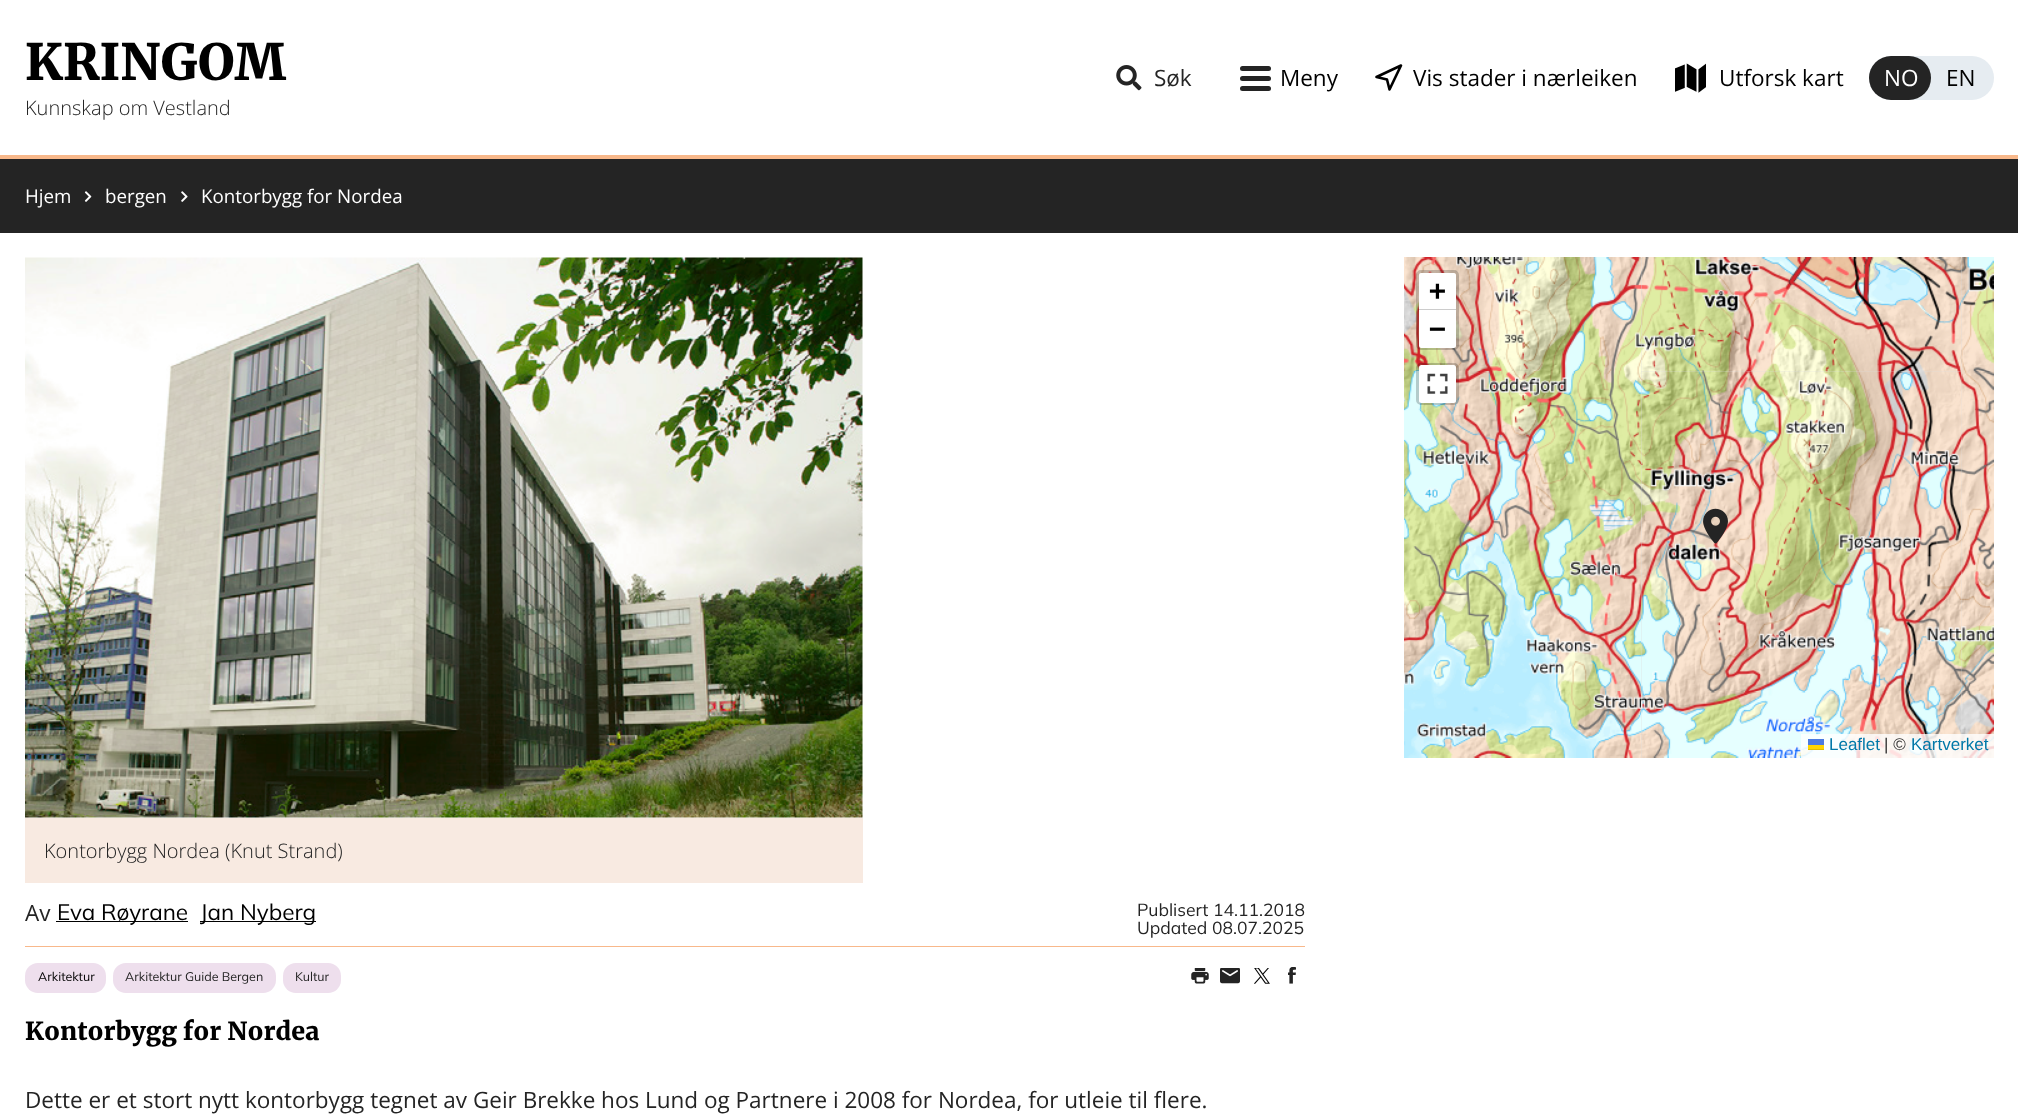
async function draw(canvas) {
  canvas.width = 2018;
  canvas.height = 1119;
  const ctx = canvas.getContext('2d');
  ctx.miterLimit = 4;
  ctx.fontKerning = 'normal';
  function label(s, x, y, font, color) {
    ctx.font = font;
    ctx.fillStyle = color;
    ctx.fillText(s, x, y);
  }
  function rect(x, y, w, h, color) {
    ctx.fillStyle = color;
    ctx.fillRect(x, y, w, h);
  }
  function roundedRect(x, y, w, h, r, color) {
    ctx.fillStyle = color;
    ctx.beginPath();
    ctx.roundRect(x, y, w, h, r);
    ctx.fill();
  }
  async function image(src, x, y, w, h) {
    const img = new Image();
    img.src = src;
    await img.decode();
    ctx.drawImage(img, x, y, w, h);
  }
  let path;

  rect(0, 0, 2018, 1119, '#fff');
  rect(0, 155, 2018, 4, '#f8b88b');
  label('KRINGOM', 25, 80, '900 50px Merriweather', '#000');
  label('Kunnskap om Vestland', 25, 115, '300 20px Open Sans', '#242424');
  await image('assets/img1.png', 1116, 65, 26, 26);
  label('Søk', 1154, 86, '22.5px Open Sans', '#242424');
  roundedRect(1240, 66, 31, 5, 2.5, '#242424');
  roundedRect(1240, 76, 31, 5, 2.5, '#242424');
  roundedRect(1240, 86, 31, 5, 2.5, '#242424');
  label('Meny', 1280, 86, '22.5px Open Sans', '#000');
  path = new Path2D('M1376.5 77L1401 65.5L1389.5 89.5L1387 79.5Z');
  ctx.strokeStyle = '#000';
  ctx.lineWidth = 2.6;
  ctx.lineCap = 'round';
  ctx.lineJoin = 'round';
  ctx.stroke(path);
  label('Vis stader i nærleiken', 1413, 86, '22.5px Open Sans', '#000');
  await image('assets/img2.png', 1675, 63, 31, 30);
  label('Utforsk kart', 1719, 86, '22.5px Open Sans', '#000');
  roundedRect(1869, 56, 125, 44, 22, '#e6ecf1');
  roundedRect(1869, 56, 62, 44, 22, '#242424');
  label('NO', 1884, 86, '22.5px Open Sans', '#fff');
  label('EN', 1946, 86, '22.5px Open Sans', '#000');
  rect(0, 159, 2018, 74, '#242424');
  label('Hjem', 25, 203, '18.75px Open Sans', '#fff');
  await image('assets/img3.png', 84, 191, 8, 11);
  label('bergen', 105, 203, '18.75px Open Sans', '#fff');
  await image('assets/img4.png', 181, 191, 7, 11);
  label('Kontorbygg for Nordea', 201, 203, '18.75px Open Sans', '#fff');
  rect(1421, 258, 541, 500, '#ddd');
  await image('assets/img5.png', 1404, 257, 237, 114);
  await image('assets/img6.png', 1641, 257, 320, 114);
  await image('assets/img7.png', 1961, 257, 33, 114);
  await image('assets/img8.png', 1404, 371, 237, 320);
  await image('assets/img9.png', 1641, 371, 321, 321);
  await image('assets/img10.png', 1961, 371, 33, 320);
  await image('assets/img11.png', 1404, 691, 237, 67);
  await image('assets/img12.png', 1641, 691, 320, 67);
  await image('assets/img13.png', 1961, 691, 33, 67);
  await image('assets/img14.png', 1703, 508, 25, 36);
  ctx.beginPath();
  ctx.roundRect(1417.5, 271.5, 40, 77, 3.5);
  ctx.strokeStyle = '#00000033';
  ctx.lineWidth = 3;
  ctx.lineJoin = 'miter';
  ctx.stroke();
  ctx.fillStyle = '#fff';
  ctx.beginPath();
  ctx.roundRect(1419, 273, 37, 37, [2.5, 2.5, 0, 0]);
  ctx.fill();
  rect(1419, 309, 37, 1, '#ccc');
  label('+', 1429, 300, 'bold 28px DejaVu Sans Mono', '#000');
  ctx.fillStyle = '#fff';
  ctx.beginPath();
  ctx.roundRect(1419, 310, 37, 38, [0, 0, 2.5, 2.5]);
  ctx.fill();
  label('−', 1429, 338, 'bold 28px DejaVu Sans Mono', '#000');
  ctx.beginPath();
  ctx.roundRect(1417.5, 364.5, 40, 39, 3.5);
  ctx.stroke();
  roundedRect(1419, 365, 37, 38, 2.5, '#fff');
  await image('assets/img15.png', 1427, 373, 21, 21);
  rect(1801, 734, 193, 24, '#ffffffcc');
  label('Leaflet', 1829, 750, '17px Liberation Sans', '#0078a8');
  rect(1808, 739, 16, 6, '#4c7be1');
  rect(1808, 745, 16, 4, '#ffd500');
  rect(1808, 749, 16, 1, '#e0bc00');
  label('| ©', 1884, 750, '17px Liberation Sans', '#333');
  label('Kartverket', 1911, 750, '17px Liberation Sans', '#0078a8');
  await image('assets/img16.png', 25, 257, 838, 561);
  rect(25, 818, 838, 65, '#f8eae1');
  label('Kontorbygg Nordea (Knut Strand)', 44, 858, '300 20px Open Sans', '#242424');
  rect(25, 946, 1280, 1, '#f8b88b');
  label('Av', 25, 921, '22.5px Open Sans', '#242424');
  rect(56, 921, 132, 1, '#000');
  label('Eva Røyrane', 57, 920, '22.5px Mulish', '#000');
  rect(200, 921, 116, 1, '#000');
  label('Jan Nyberg', 200, 920, '22.5px Mulish', '#000');
  label('Publisert 14.11.2018', 1137, 916, '17.5px Mulish', '#242424');
  label('Updated 08.07.2025', 1137, 934, '17.5px Mulish', '#242424');
  roundedRect(25, 963, 81, 30, 13, '#eedfed');
  label('Arkitektur', 38, 981, '12.5px Mulish', '#000');
  roundedRect(113, 963, 163, 30, 13, '#eedfed');
  label('Arkitektur Guide Bergen', 125, 981, '12.5px Mulish', '#242424');
  roundedRect(283, 963, 58, 30, 13, '#eedfed');
  label('Kultur', 295, 981, '12.5px Mulish', '#242424');
  await image('assets/img17.png', 1191, 968, 18, 16);
  await image('assets/img18.png', 1220, 968, 20, 16);
  await image('assets/img19.png', 1254, 968, 16, 16);
  await image('assets/img20.png', 1288, 967, 8, 17);
  label('Kontorbygg for Nordea', 25, 1040, '900 25px Merriweather', '#000');
  label('Dette er et stort nytt kontorbygg tegnet av Geir Brekke hos Lund og Partnere i 2008 for Nordea, for utleie til flere.', 25, 1108, '22.5px Open Sans', '#242424');
}

draw(document.querySelector('canvas'));
